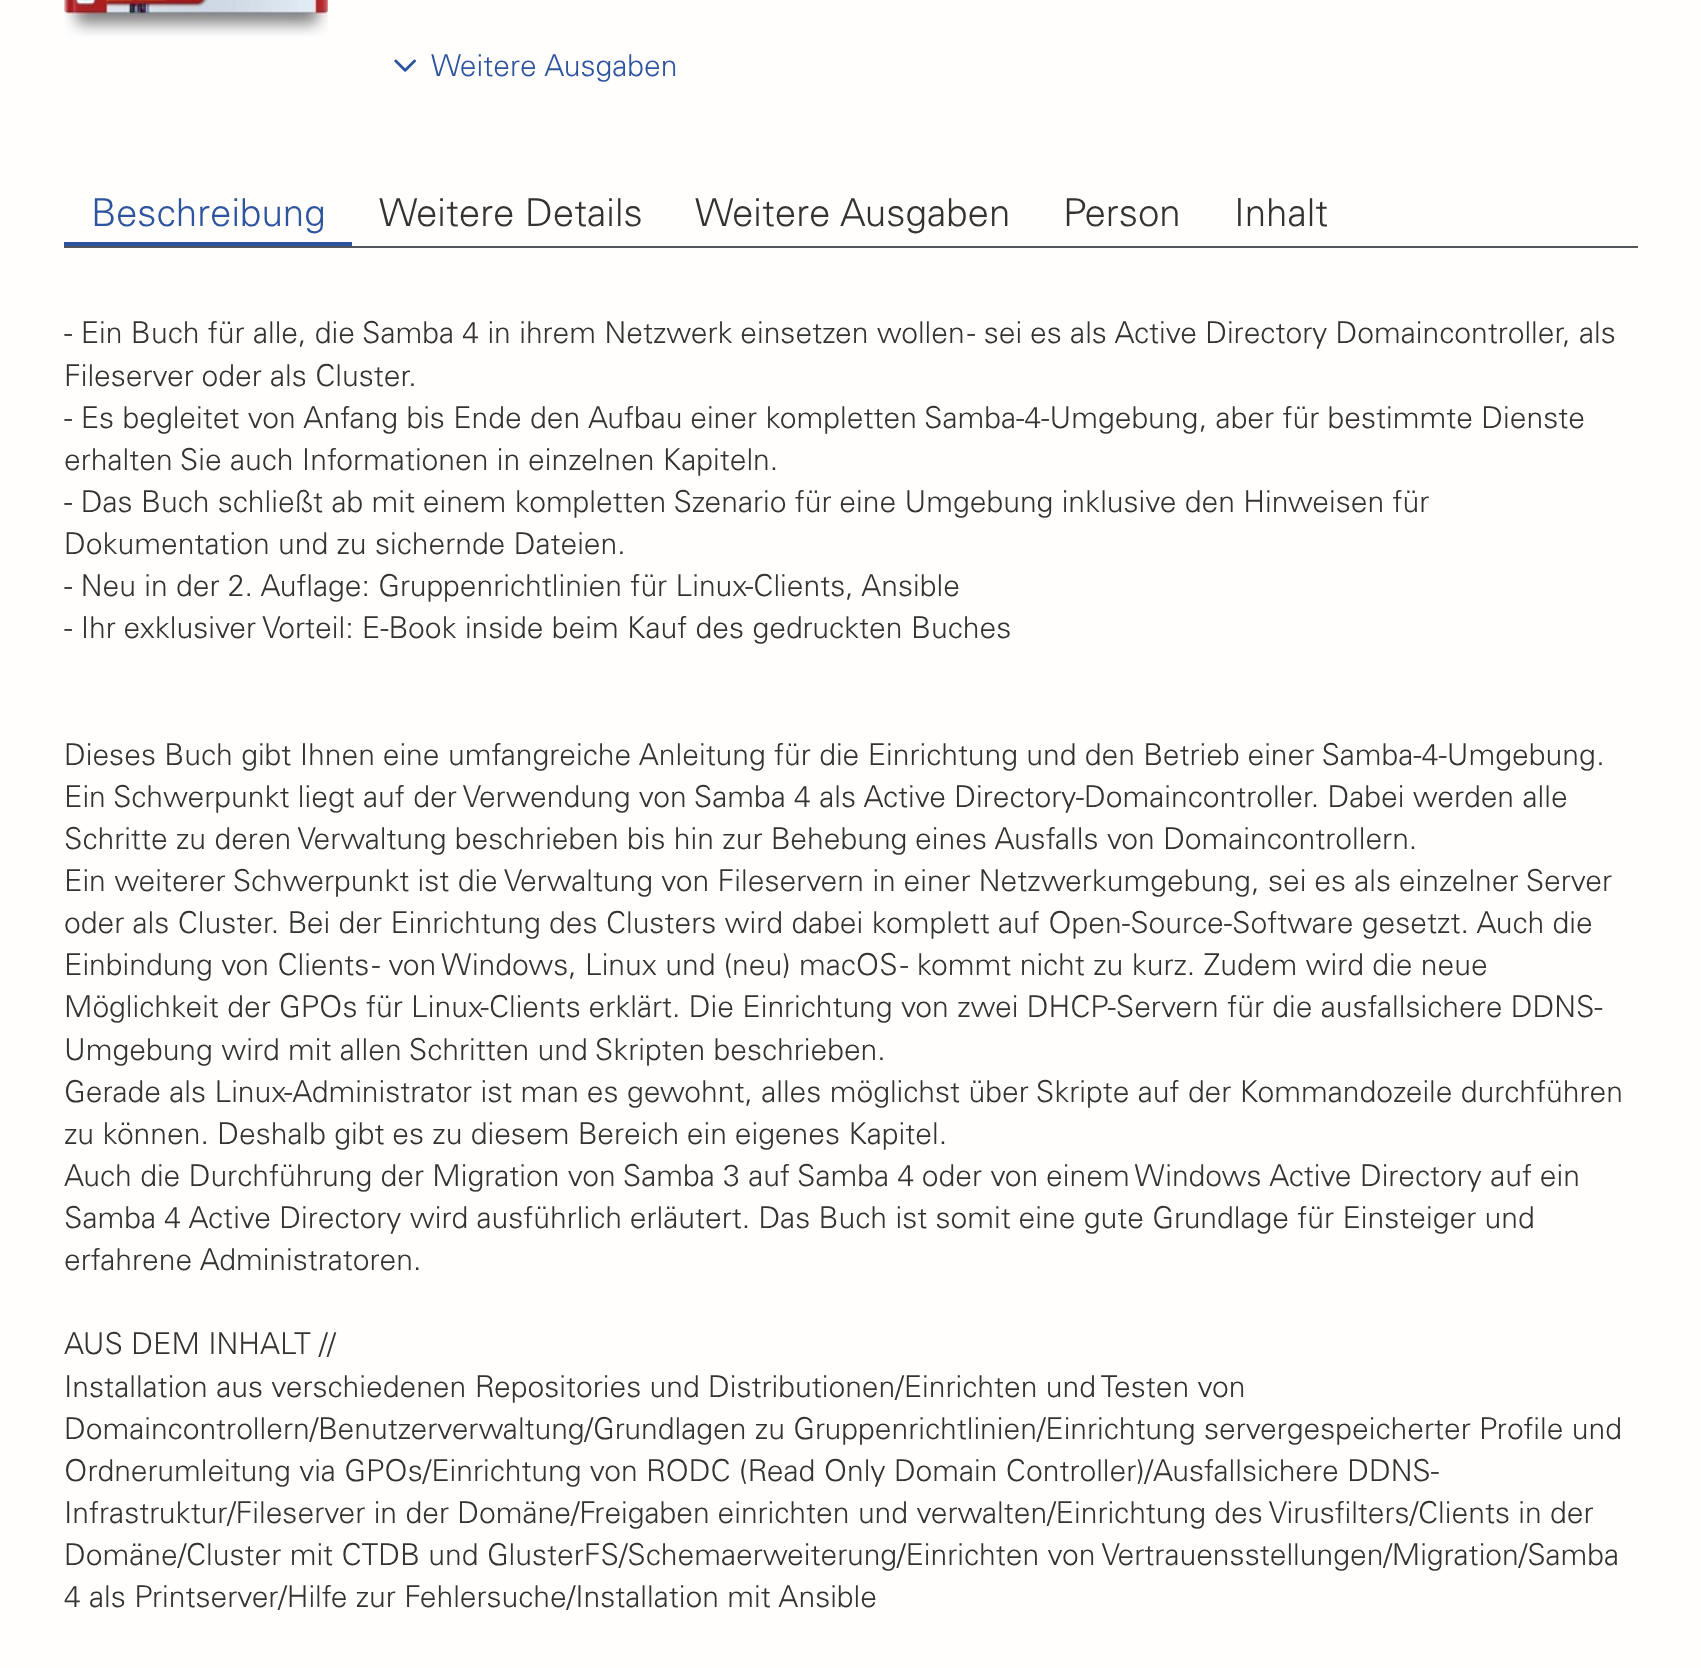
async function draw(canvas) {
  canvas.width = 1701;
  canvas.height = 1668;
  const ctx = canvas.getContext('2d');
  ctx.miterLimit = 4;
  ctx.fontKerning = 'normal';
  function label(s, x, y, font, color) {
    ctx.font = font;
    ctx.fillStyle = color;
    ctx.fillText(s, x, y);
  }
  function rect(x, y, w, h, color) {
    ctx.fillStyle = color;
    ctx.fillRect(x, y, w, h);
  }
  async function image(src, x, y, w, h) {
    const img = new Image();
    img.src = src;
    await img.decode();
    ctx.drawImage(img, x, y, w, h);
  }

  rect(0, 0, 1701, 1668, '#fffefd');
  await image('assets/img1.png', 64, 0, 264, 36);
  await image('assets/img2.png', 394, 59, 22, 13);
  label('Weitere Ausgaben', 431, 76, '300 30.08px Univers', '#2d549e');
  label('Beschreibung', 91, 226, '300 38.5px Univers', '#2d549e');
  rect(64, 242, 288, 4, '#2d549e');
  label('Weitere Details', 379, 226, '300 38.5px Univers', '#333');
  label('Weitere Ausgaben', 695, 226, '300 38.5px Univers', '#333');
  label('Person', 1063, 226, '300 38.5px Univers', '#333');
  label('Inhalt', 1234, 226, '300 38.5px Univers', '#333');
  rect(64, 246, 1574, 2, '#54565b');
  label('- Ein Buch für alle, die Samba 4 in ihrem Netzwerk einsetzen wollen - sei es als Active Directory Domaincontroller, als', 64, 343, '300 30.08px Univers', '#333');
  label('Fileserver oder als Cluster.', 64, 386, '300 30.08px Univers', '#333');
  label('- Es begleitet von Anfang bis Ende den Aufbau einer kompletten Samba-4-Umgebung, aber für bestimmte Dienste', 64, 428, '300 30.08px Univers', '#333');
  label('erhalten Sie auch Informationen in einzelnen Kapiteln.', 64, 470, '300 30.08px Univers', '#333');
  label('- Das Buch schließt ab mit einem kompletten Szenario für eine Umgebung inklusive den Hinweisen für', 64, 512, '300 30.08px Univers', '#333');
  label('Dokumentation und zu sichernde Dateien.', 64, 554, '300 30.08px Univers', '#333');
  label('- Neu in der 2. Auflage: Gruppenrichtlinien für Linux-Clients, Ansible', 64, 596, '300 30.08px Univers', '#333');
  label('- Ihr exklusiver Vorteil: E-Book inside beim Kauf des gedruckten Buches', 64, 638, '300 30.08px Univers', '#333');
  label('Dieses Buch gibt Ihnen eine umfangreiche Anleitung für die Einrichtung und den Betrieb einer Samba-4-Umgebung.', 64, 765, '300 30.08px Univers', '#333');
  label('Ein Schwerpunkt liegt auf der Verwendung von Samba 4 als Active Directory-Domaincontroller. Dabei werden alle', 64, 807, '300 30.08px Univers', '#333');
  label('Schritte zu deren Verwaltung beschrieben bis hin zur Behebung eines Ausfalls von Domaincontrollern.', 64, 849, '300 30.08px Univers', '#333');
  label('Ein weiterer Schwerpunkt ist die Verwaltung von Fileservern in einer Netzwerkumgebung, sei es als einzelner Server', 64, 891, '300 30.08px Univers', '#333');
  label('oder als Cluster. Bei der Einrichtung des Clusters wird dabei komplett auf Open-Source-Software gesetzt. Auch die', 64, 933, '300 30.08px Univers', '#333');
  label('Einbindung von Clients - von Windows, Linux und (neu) macOS - kommt nicht zu kurz. Zudem wird die neue', 64, 975, '300 30.08px Univers', '#333');
  label('Möglichkeit der GPOs für Linux-Clients erklärt. Die Einrichtung von zwei DHCP-Servern für die ausfallsichere DDNS-', 64, 1017, '300 30.08px Univers', '#333');
  label('Umgebung wird mit allen Schritten und Skripten beschrieben.', 64, 1060, '300 30.08px Univers', '#333');
  label('Gerade als Linux-Administrator ist man es gewohnt, alles möglichst über Skripte auf der Kommandozeile durchführen', 64, 1102, '300 30.08px Univers', '#333');
  label('zu können. Deshalb gibt es zu diesem Bereich ein eigenes Kapitel.', 64, 1144, '300 30.08px Univers', '#333');
  label('Auch die Durchführung der Migration von Samba 3 auf Samba 4 oder von einem Windows Active Directory auf ein', 64, 1186, '300 30.08px Univers', '#333');
  label('Samba 4 Active Directory wird ausführlich erläutert. Das Buch ist somit eine gute Grundlage für Einsteiger und', 64, 1228, '300 30.08px Univers', '#333');
  label('erfahrene Administratoren.', 64, 1270, '300 30.08px Univers', '#333');
  label('AUS DEM INHALT //', 64, 1354, '300 30.08px Univers', '#333');
  label('Installation aus verschiedenen Repositories und Distributionen/Einrichten und Testen von', 64, 1397, '300 30.08px Univers', '#333');
  label('Domaincontrollern/Benutzerverwaltung/Grundlagen zu Gruppenrichtlinien/Einrichtung servergespeicherter Profile und', 64, 1439, '300 30.08px Univers', '#333');
  label('Ordnerumleitung via GPOs/Einrichtung von RODC (Read Only Domain Controller)/Ausfallsichere DDNS-', 64, 1481, '300 30.08px Univers', '#333');
  label('Infrastruktur/Fileserver in der Domäne/Freigaben einrichten und verwalten/Einrichtung des Virusfilters/Clients in der', 64, 1523, '300 30.08px Univers', '#333');
  label('Domäne/Cluster mit CTDB und GlusterFS/Schemaerweiterung/Einrichten von Vertrauensstellungen/Migration/Samba', 64, 1565, '300 30.08px Univers', '#333');
  label('4 als Printserver/Hilfe zur Fehlersuche/Installation mit Ansible', 64, 1607, '300 30.08px Univers', '#333');
}

draw(document.querySelector('canvas'));
